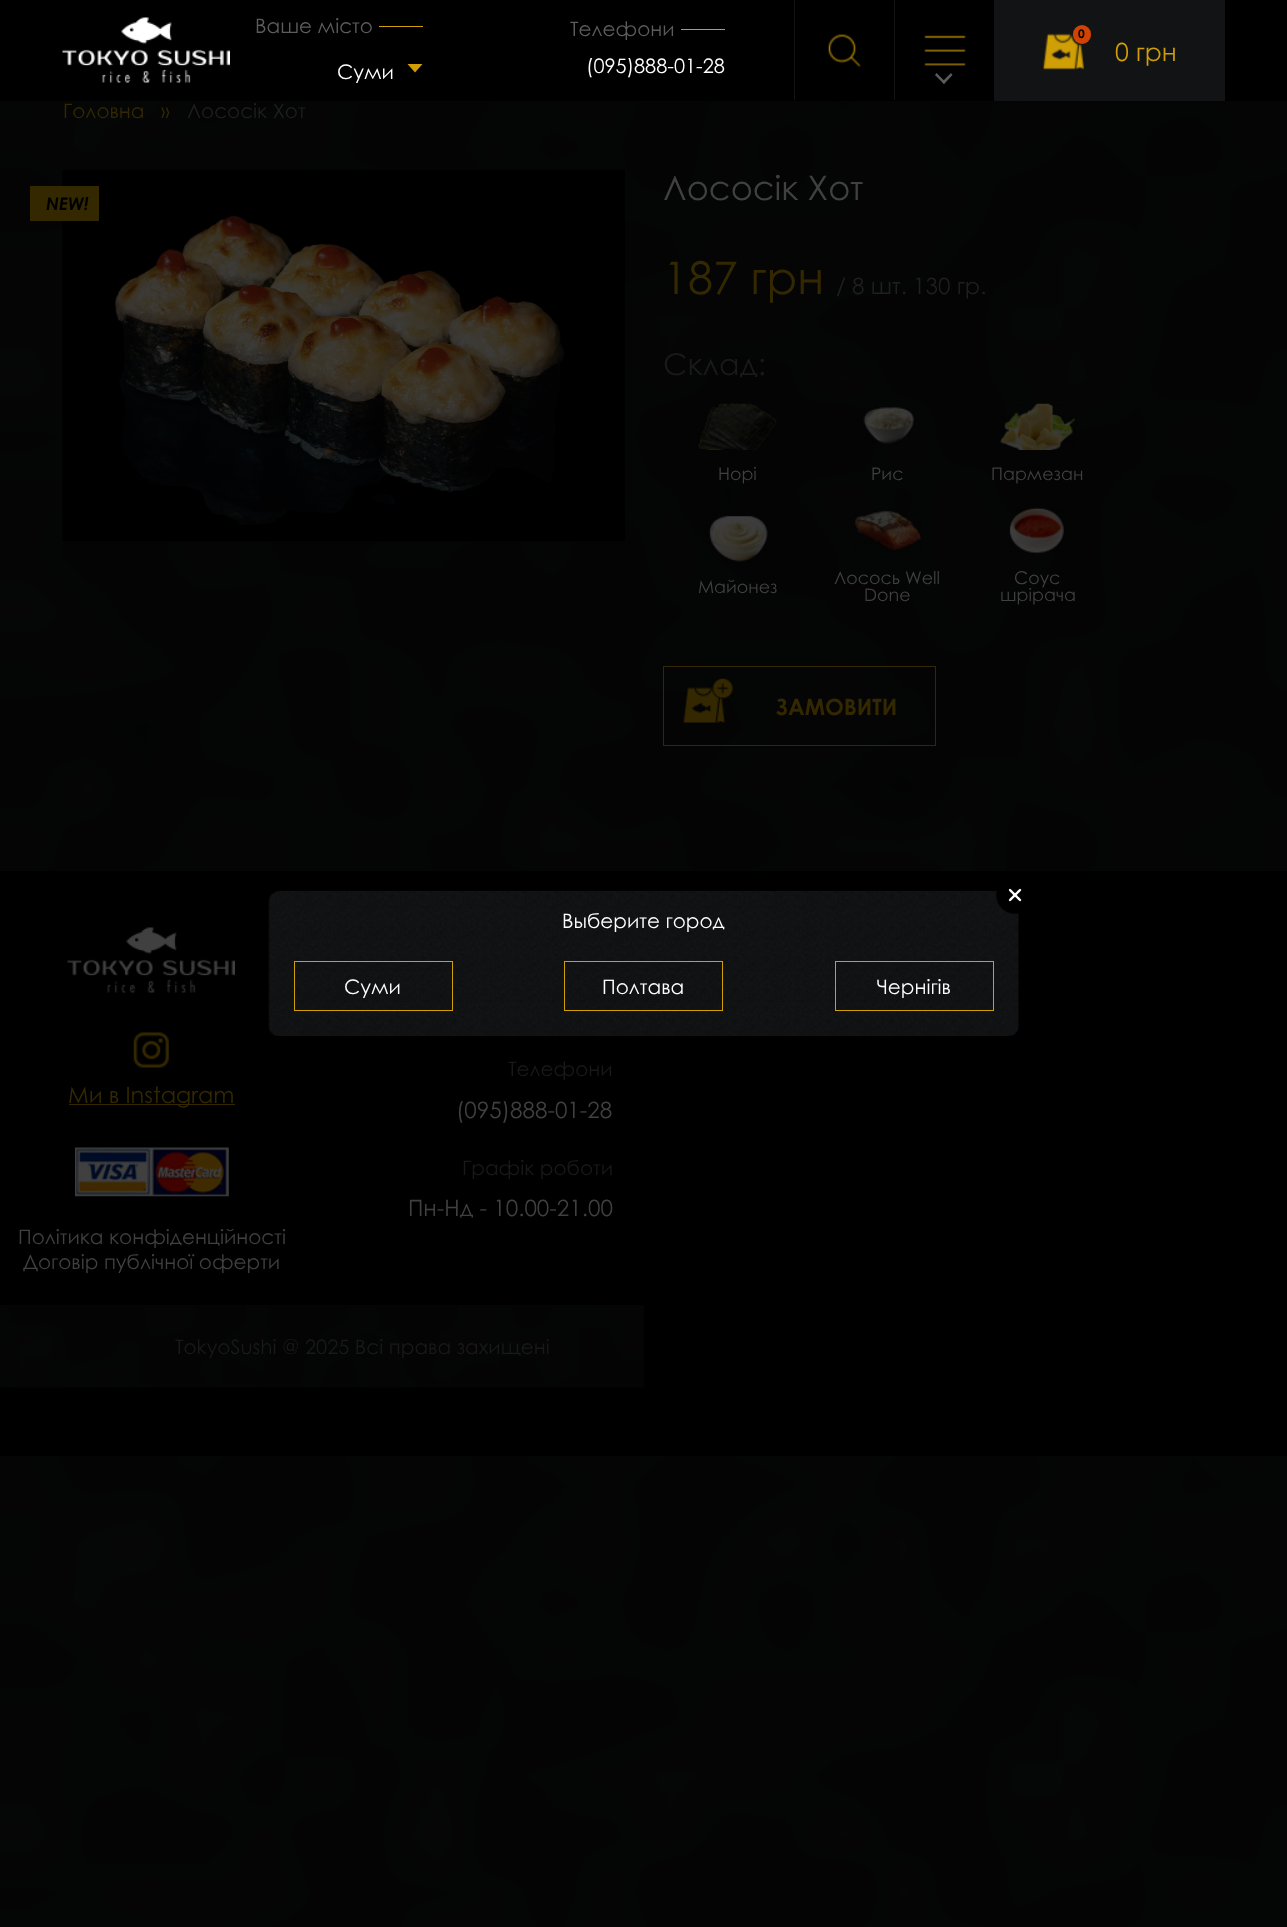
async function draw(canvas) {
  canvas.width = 1287;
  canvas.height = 1927;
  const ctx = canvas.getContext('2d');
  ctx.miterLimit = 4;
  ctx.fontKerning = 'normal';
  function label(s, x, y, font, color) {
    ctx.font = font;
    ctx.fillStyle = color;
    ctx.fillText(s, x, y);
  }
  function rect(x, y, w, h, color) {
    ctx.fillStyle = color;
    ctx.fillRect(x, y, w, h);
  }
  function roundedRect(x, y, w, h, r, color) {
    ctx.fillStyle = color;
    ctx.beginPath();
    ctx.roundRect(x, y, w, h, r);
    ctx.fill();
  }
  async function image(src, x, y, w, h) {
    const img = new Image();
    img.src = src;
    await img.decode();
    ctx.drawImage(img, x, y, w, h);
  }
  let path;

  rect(0, 0, 1287, 1927, '#fff');
  await image('assets/img1.png', 0, 101, 1287, 1826);
  rect(0, 0, 1287, 101, '#000');
  await image('assets/img2.png', 62, 17, 168, 66);
  label('Ваше мiсто', 255, 33, '20px Century Gothic', '#5c5c5c');
  rect(379, 26, 44, 1, '#cf9f05');
  label('Суми', 337, 79, '20px Century Gothic', '#fff');
  ctx.fillStyle = '#cf9f05';
  path = new Path2D('M407.5 64H422.5L415 72.5Z');
  ctx.fill(path);
  label('Телефони', 570, 36, '20px Century Gothic', '#5c5c5c');
  rect(681, 29, 44, 1, '#cf9f05');
  label('(095)888-01-28', 586, 73, '20px Century Gothic', '#fff');
  rect(794, 0, 1, 100, '#121314');
  await image('assets/img3.png', 828, 34, 33, 33);
  rect(894, 0, 1, 100, '#121314');
  await image('assets/img4.png', 924, 35, 42, 31);
  ctx.fillStyle = '#5c5c5c';
  path = new Path2D('M951 73L952.5 75L944 84L942 82Z');
  ctx.fill(path);
  path = new Path2D('M936.5 73L945.5 82L944 84L935 75Z');
  ctx.fill(path);
  rect(994, 0, 231, 101, '#121314');
  await image('assets/img5.png', 1042, 33, 42, 37);
  roundedRect(1073, 25, 18, 19, 9, '#cf4305');
  label('0', 1078, 38, 'bold 12px Century Gothic', '#000');
  label('0 грн', 1115, 61, '25px Century Gothic', '#cf9f05');
  label('Головна', 63, 118, '20px Century Gothic', '#342801');
  label('»', 161, 118, '20px Century Gothic', '#342801');
  label('Лососік Хот', 187, 118, '20px Century Gothic', '#1f1f1f');
  await image('assets/img6.png', 62, 170, 563, 372);
  rect(30, 186, 69, 35, '#342801');
  label('NEW!', 46, 210, 'italic bold 17.5px Century Gothic', '#000');
  label('Лососік Хот', 663, 200, '33.75px Century Gothic', '#404040');
  label('187 грн', 663, 294, '45px Century Gothic', '#342801');
  label('/ 8 шт. 130 гр.', 836, 294, '22.5px Century Gothic', '#1f1f1f');
  label('Склад:', 663, 375, '30px Century Gothic', '#191919');
  await image('assets/img7.png', 698, 403, 79, 47);
  label('Норі', 718, 480, '17.5px Century Gothic', '#404040');
  await image('assets/img8.png', 863, 407, 51, 37);
  label('Рис', 871, 480, '17.5px Century Gothic', '#404040');
  await image('assets/img9.png', 1000, 403, 76, 47);
  label('Пармезан', 991, 480, '17.5px Century Gothic', '#404040');
  await image('assets/img10.png', 709, 516, 59, 46);
  label('Майонез', 698, 593, '17.5px Century Gothic', '#404040');
  await image('assets/img11.png', 854, 510, 68, 42);
  label('Лосось Well', 834, 584, '17.5px Century Gothic', '#404040');
  label('Done', 864, 601, '17.5px Century Gothic', '#404040');
  await image('assets/img12.png', 1009, 507, 55, 47);
  label('Соус', 1014, 584, '17.5px Century Gothic', '#404040');
  label('шрірача', 1000, 601, '17.5px Century Gothic', '#404040');
  ctx.strokeStyle = '#342801';
  ctx.strokeRect(663.5, 666.5, 272, 79);
  await image('assets/img13.png', 683, 678, 50, 45);
  label('ЗАМОВИТИ', 776, 715, 'bold 22.5px Century Gothic', '#342801');
  rect(0, 871, 1287, 585, '#000');
  await image('assets/img14.png', 268, 891, 751, 145);
  await image('assets/img15.png', 996, 888, 26, 26);
  label('Выберите город', 562, 928, '20px Century Gothic', '#fff');
  ctx.strokeStyle = '#cf9f05';
  ctx.strokeRect(294.5, 961.5, 158, 49);
  label('Суми', 344, 994, '20px Century Gothic', '#fff');
  ctx.strokeRect(564.5, 961.5, 158, 49);
  label('Полтава', 602, 994, '20px Century Gothic', '#fff');
  ctx.strokeRect(835.5, 961.5, 158, 49);
  label('Чернігів', 877, 994, '20px Century Gothic', '#fff');
  await image('assets/img16.png', 67, 927, 168, 66);
  await image('assets/img17.png', 133, 1032, 36, 36);
  rect(69, 1104, 166, 1, '#342801');
  label('Ми в Instagram', 68, 1103, '22.5px Century Gothic', '#342801');
  await image('assets/img18.png', 75, 1147, 154, 50);
  label('Політика конфіденційності', 18, 1244, '20px Century Gothic', '#404040');
  label('Договір публічної оферти', 23, 1269, '20px Century Gothic', '#404040');
  label('Телефони', 508, 1076, '20px Century Gothic', '#191919');
  label('(095)888-01-28', 456, 1118, '22.5px Century Gothic', '#404040');
  label('Графiк роботи', 462, 1175, '20px Century Gothic', '#191919');
  label('Пн-Нд - 10.00-21.00', 408, 1216, '22.5px Century Gothic', '#404040');
  await image('assets/img19.png', 0, 1305, 644, 83);
  label('TokyoSushi @ 2025 Всі права захищені', 175, 1354, '20px Century Gothic', '#191919');
}

draw(document.querySelector('canvas'));
